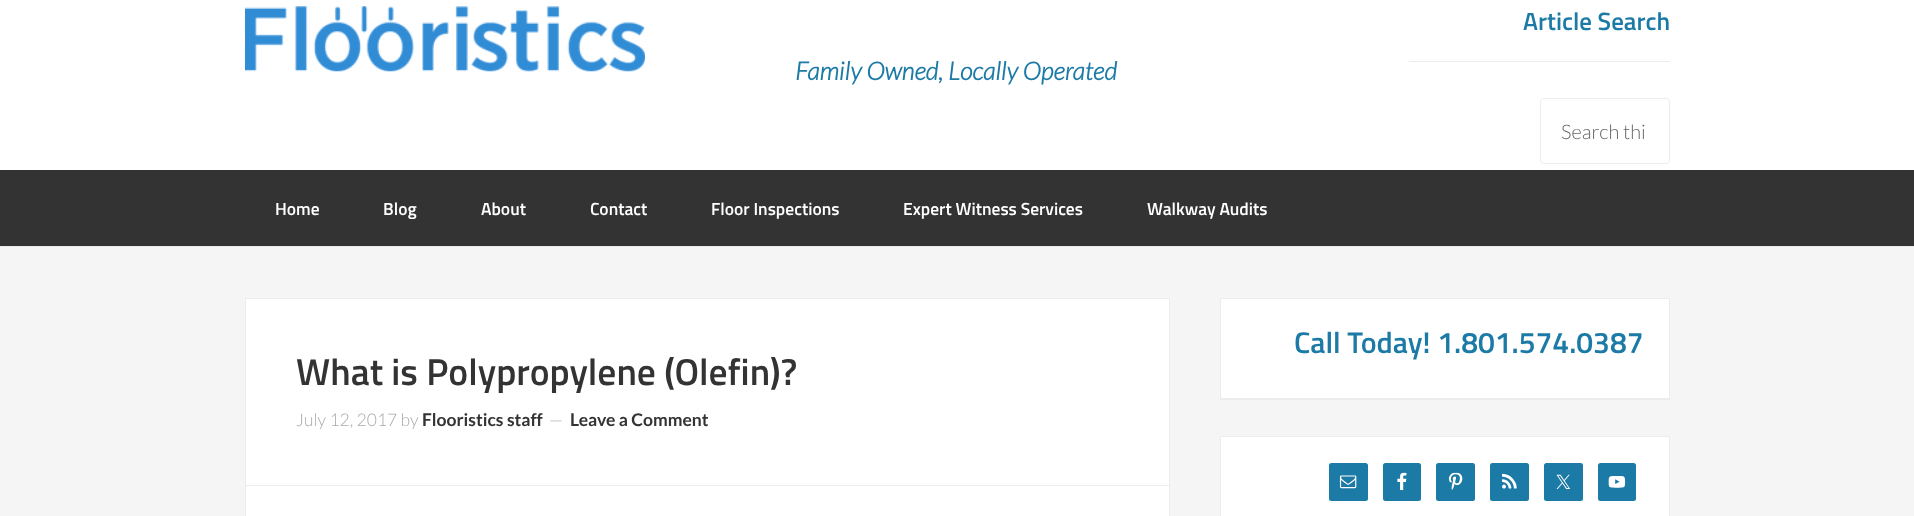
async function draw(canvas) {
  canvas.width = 1914;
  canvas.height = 516;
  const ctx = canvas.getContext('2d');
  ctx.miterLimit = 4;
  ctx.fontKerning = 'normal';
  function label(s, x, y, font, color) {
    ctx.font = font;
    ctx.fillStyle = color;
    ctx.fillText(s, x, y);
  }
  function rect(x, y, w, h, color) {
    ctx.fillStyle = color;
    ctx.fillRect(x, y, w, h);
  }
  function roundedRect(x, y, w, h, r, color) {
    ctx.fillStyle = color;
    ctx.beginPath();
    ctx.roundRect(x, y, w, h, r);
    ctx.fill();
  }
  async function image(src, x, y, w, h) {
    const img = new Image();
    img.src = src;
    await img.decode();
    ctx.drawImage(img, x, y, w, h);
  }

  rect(0, 0, 1914, 516, '#fff');
  await image('assets/img1.png', 245, 6, 400, 66);
  label('Family Owned, Locally Operated', 795, 80, 'italic bold 25px Lato', '#1c7aa6');
  rect(1409, 61, 261, 1, '#ececec');
  label('Article Search', 1523, 30, '600 25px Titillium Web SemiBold', '#1c7aa6');
  ctx.beginPath();
  ctx.roundRect(1540.5, 98.5, 129, 65, 3.5);
  ctx.strokeStyle = '#ececec';
  ctx.stroke();
  label('Search thi', 1561, 139, '300 20px Lato', '#666');
  rect(0, 170, 1914, 76, '#333');
  label('Home', 275, 215, '600 17.5px Titillium Web SemiBold', '#fff');
  label('Blog', 383, 215, '600 17.5px Titillium Web SemiBold', '#fff');
  label('About', 481, 215, '600 17.5px Titillium Web SemiBold', '#fff');
  label('Contact', 590, 215, '600 17.5px Titillium Web SemiBold', '#fff');
  label('Floor Inspections', 711, 215, '600 17.5px Titillium Web SemiBold', '#fff');
  label('Expert Witness Services', 903, 215, '600 17.5px Titillium Web SemiBold', '#fff');
  label('Walkway Audits', 1147, 215, '600 17.5px Titillium Web SemiBold', '#fff');
  rect(0, 247, 1914, 269, '#f5f5f5');
  rect(0, 246, 1914, 1, '#ececec');
  rect(1220, 399, 450, 1, '#ececec');
  ctx.fillStyle = '#fff';
  ctx.beginPath();
  ctx.rect(1220.5, 298.5, 449, 100);
  ctx.fill();
  ctx.stroke();
  label('Call Today! 1.801.574.0387', 1294, 353, '600 30px Titillium Web SemiBold', '#1c7aa6');
  ctx.fillStyle = '#fff';
  ctx.beginPath();
  ctx.rect(1220.5, 436.5, 449, 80);
  ctx.fill();
  ctx.stroke();
  roundedRect(1329, 463, 39, 38, 2.5, '#1c7aa6');
  await image('assets/img2.png', 1339, 475, 18, 14);
  roundedRect(1383, 463, 38, 38, 2.5, '#1c7aa6');
  await image('assets/img3.png', 1397, 472, 10, 18);
  roundedRect(1436, 463, 39, 38, 2.5, '#1c7aa6');
  await image('assets/img4.png', 1448, 472, 15, 18);
  roundedRect(1490, 463, 39, 38, 2.5, '#1c7aa6');
  await image('assets/img5.png', 1502, 473, 15, 16);
  roundedRect(1544, 463, 39, 38, 2.5, '#1c7aa6');
  await image('assets/img6.png', 1556, 474, 15, 15);
  roundedRect(1598, 463, 38, 38, 2.5, '#1c7aa6');
  await image('assets/img7.png', 1608, 476, 18, 12);
  ctx.fillStyle = '#fff';
  ctx.beginPath();
  ctx.rect(245.5, 298.5, 924, 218);
  ctx.fill();
  ctx.stroke();
  rect(246, 485, 923, 1, '#ececec');
  label('What is Polypropylene (Olefin)?', 296, 385, '600 37.5px Titillium Web SemiBold', '#333');
  label('July 12, 2017 by', 296, 426, '300 17.5px Lato', '#aaa');
  label('Flooristics staff', 422, 426, 'bold 17.5px Lato', '#333');
  label('—', 549, 426, '300 17.5px Lato', '#aaa');
  label('Leave a Comment', 570, 426, 'bold 17.5px Lato', '#333');
}

draw(document.querySelector('canvas'));
